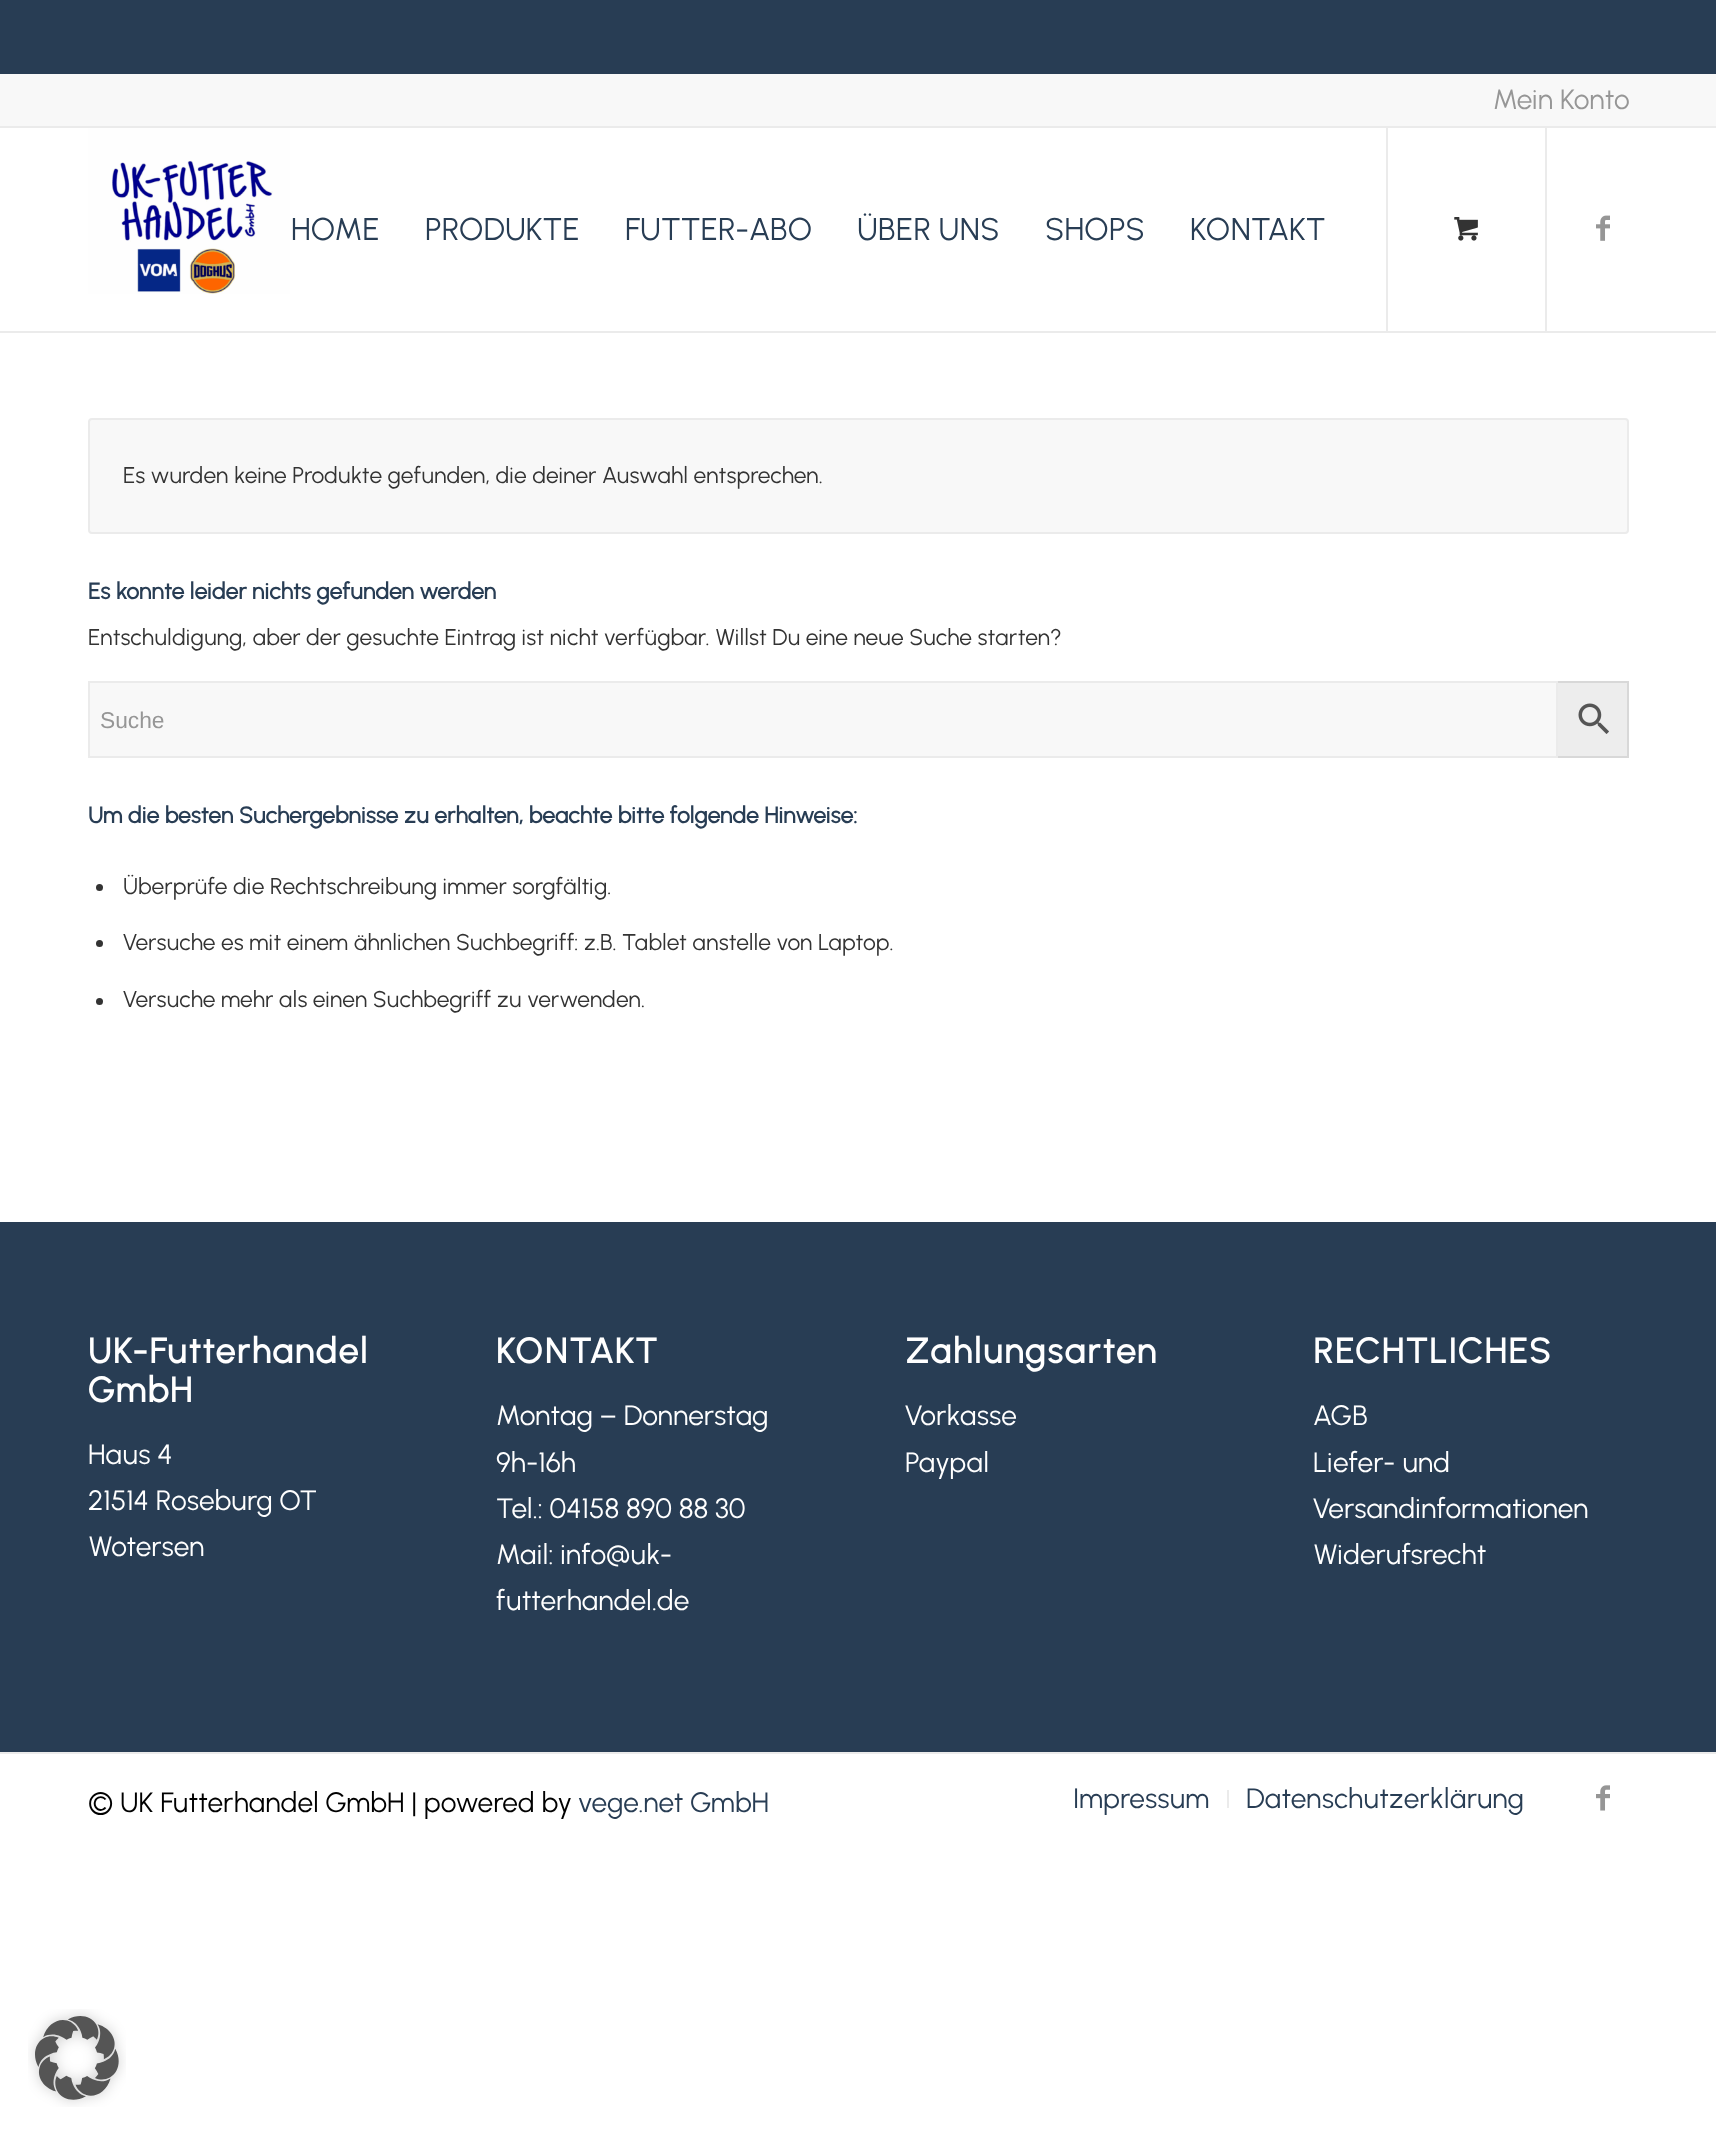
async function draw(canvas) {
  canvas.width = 1716;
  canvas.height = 2135;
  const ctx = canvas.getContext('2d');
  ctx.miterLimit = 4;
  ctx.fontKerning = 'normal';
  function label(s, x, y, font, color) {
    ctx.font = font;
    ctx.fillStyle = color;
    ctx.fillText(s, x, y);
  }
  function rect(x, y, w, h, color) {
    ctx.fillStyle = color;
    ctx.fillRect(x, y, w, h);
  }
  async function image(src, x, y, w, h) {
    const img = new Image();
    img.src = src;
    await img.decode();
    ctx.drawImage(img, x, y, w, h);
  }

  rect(0, 0, 1716, 2135, '#fff');
  rect(0, 0, 1716, 74, '#283d54');
  rect(0, 74, 1716, 52, '#f8f8f8');
  rect(0, 126, 1716, 2, '#ebebeb');
  label('Mein Konto', 1493, 109, '28px Urbanist', '#969696');
  rect(0, 331, 1716, 2, '#ebebeb');
  await image('assets/img1.png', 88, 128, 202, 166);
  rect(1386, 128, 2, 203, '#ebebeb');
  label('HOME', 291, 240, '31.5px Urbanist', '#283d54');
  label('PRODUKTE', 425, 240, '31.5px Urbanist', '#283d54');
  label('FUTTER-ABO', 625, 240, '31.5px Urbanist', '#283d54');
  label('ÜBER UNS', 857, 240, '31.5px Urbanist', '#283d54');
  label('SHOPS', 1045, 240, '31.5px Urbanist', '#283d54');
  label('KONTAKT', 1190, 240, '31.5px Urbanist', '#283d54');
  rect(1545, 128, 2, 203, '#ebebeb');
  await image('assets/img2.png', 1454, 217, 24, 24);
  await image('assets/img3.png', 1596, 215, 14, 26);
  ctx.fillStyle = '#f8f8f8';
  ctx.beginPath();
  ctx.roundRect(89, 419, 1539, 114, 3);
  ctx.fill();
  ctx.strokeStyle = '#ebebeb';
  ctx.lineWidth = 2;
  ctx.stroke();
  label('Es wurden keine Produkte gefunden, die deiner Auswahl entsprechen.', 123, 483, '22.75px Urbanist', '#333');
  label('Es konnte leider nichts gefunden werden', 88, 599, 'bold 22.75px Urbanist', '#283d54');
  label('Entschuldigung, aber der gesuchte Eintrag ist nicht verfügbar. Willst Du eine neue Suche starten?', 88, 645, '22.75px Urbanist', '#333');
  ctx.fillStyle = '#ededed';
  ctx.beginPath();
  ctx.rect(1557, 682, 71, 75);
  ctx.fill();
  ctx.strokeStyle = '#d8d8d8';
  ctx.stroke();
  ctx.fillStyle = '#f8f8f8';
  ctx.beginPath();
  ctx.rect(89, 682, 1468, 75);
  ctx.fill();
  ctx.strokeStyle = '#ebebeb';
  ctx.stroke();
  label('Suche', 100, 728, '22.75px Liberation Sans', '#969696');
  await image('assets/img4.png', 1578, 703, 31, 31);
  label('Um die besten Suchergebnisse zu erhalten, beachte bitte folgende Hinweise:', 88, 823, 'bold 22.75px Urbanist', '#283d54');
  ctx.fillStyle = '#333';
  ctx.beginPath();
  ctx.arc(99.5, 887.5, 3.5, 0, 2 * Math.PI);
  ctx.fill();
  label('Überprüfe die Rechtschreibung immer sorgfältig.', 123, 894, '22.75px Urbanist', '#333');
  ctx.beginPath();
  ctx.arc(99.5, 943.5, 3.5, 0, 2 * Math.PI);
  ctx.fill();
  label('Versuche es mit einem ähnlichen Suchbegriff: z.B. Tablet anstelle von Laptop.', 123, 950, '22.75px Urbanist', '#333');
  ctx.beginPath();
  ctx.arc(99.5, 1001.5, 3.5, 0, 2 * Math.PI);
  ctx.fill();
  label('Versuche mehr als einen Suchbegriff zu verwenden.', 123, 1007, '22.75px Urbanist', '#333');
  rect(0, 1222, 1716, 530, '#283d54');
  ctx.letterSpacing = '1.75px';
  label('UK-Futterhandel', 88, 1363, 'bold 35px Urbanist', '#fff');
  label('GmbH', 88, 1402, 'bold 35px Urbanist', '#fff');
  ctx.letterSpacing = '0px';
  label('Haus 4', 88, 1464, '28px Urbanist', '#fff');
  label('21514 Roseburg OT', 88, 1510, '28px Urbanist', '#fff');
  label('Wotersen', 88, 1556, '28px Urbanist', '#fff');
  ctx.letterSpacing = '1.75px';
  label('KONTAKT', 496, 1363, 'bold 35px Urbanist', '#fff');
  ctx.letterSpacing = '0px';
  label('Montag – Donnerstag', 496, 1425, '28px Urbanist', '#fff');
  label('9h-16h', 496, 1472, '28px Urbanist', '#fff');
  label('Tel.: 04158 890 88 30', 496, 1518, '28px Urbanist', '#fff');
  label('Mail: info@uk-', 496, 1564, '28px Urbanist', '#fff');
  label('futterhandel.de', 496, 1610, '28px Urbanist', '#fff');
  ctx.letterSpacing = '1.75px';
  label('Zahlungsarten', 905, 1363, 'bold 35px Urbanist', '#fff');
  ctx.letterSpacing = '0px';
  label('Vorkasse', 905, 1425, '28px Urbanist', '#fff');
  label('Paypal', 905, 1472, '28px Urbanist', '#fff');
  ctx.letterSpacing = '1.75px';
  label('RECHTLICHES', 1313, 1363, 'bold 35px Urbanist', '#fff');
  ctx.letterSpacing = '0px';
  label('AGB', 1313, 1425, '28px Urbanist', '#fff');
  label('Liefer- und', 1313, 1472, '28px Urbanist', '#fff');
  label('Versandinformationen', 1313, 1518, '28px Urbanist', '#fff');
  label('Widerufsrecht', 1313, 1564, '28px Urbanist', '#fff');
  rect(0, 1752, 1716, 2, '#ebebeb');
  label('© UK Futterhandel GmbH | powered by', 88, 1812, '28px Urbanist', '#000');
  label('vege.net GmbH', 578, 1812, '28px Urbanist', '#283d54');
  label('Impressum', 1073, 1808, '28px Urbanist', '#283d54');
  rect(1227, 1790, 2, 18, '#ebebeb');
  label('Datenschutzerklärung', 1246, 1808, '28px Urbanist', '#283d54');
  await image('assets/img5.png', 1596, 1785, 14, 26);
  await image('assets/img6.png', 28, 2009, 98, 98);
}

draw(document.querySelector('canvas'));
